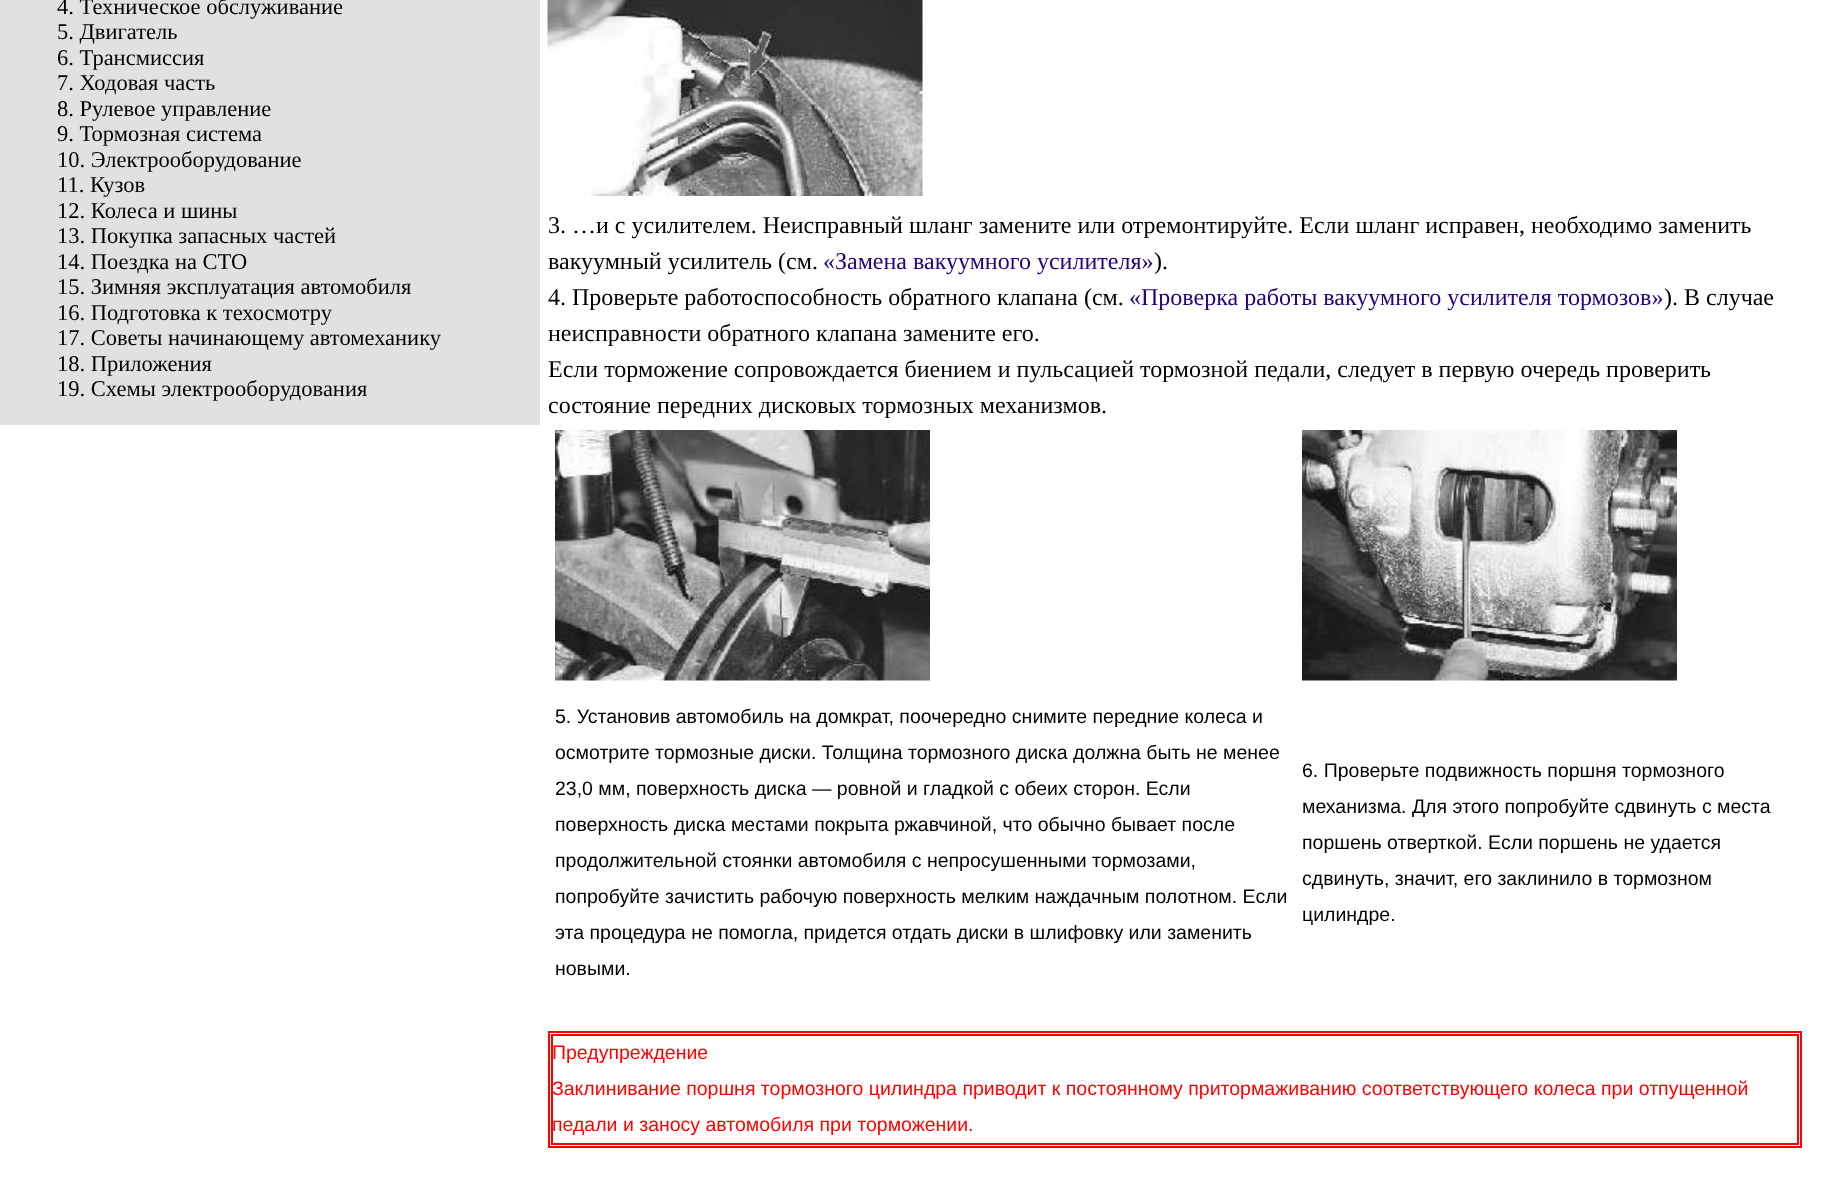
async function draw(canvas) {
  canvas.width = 1823;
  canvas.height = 1203;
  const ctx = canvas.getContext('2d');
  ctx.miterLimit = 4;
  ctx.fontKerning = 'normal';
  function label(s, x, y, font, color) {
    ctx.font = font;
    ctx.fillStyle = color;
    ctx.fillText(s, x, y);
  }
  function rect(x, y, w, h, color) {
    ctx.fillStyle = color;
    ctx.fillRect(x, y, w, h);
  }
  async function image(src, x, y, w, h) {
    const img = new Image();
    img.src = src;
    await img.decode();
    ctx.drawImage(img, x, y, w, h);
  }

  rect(0, 0, 1823, 1203, '#fff');
  rect(0, 0, 540, 425, '#e1e1e1');
  label('4. Техническое обслуживание', 57, 14, '22.5px Liberation Serif', '#000');
  label('5. Двигатель', 57, 39, '22.5px Liberation Serif', '#000');
  label('6. Трансмиссия', 57, 65, '22.5px Liberation Serif', '#000');
  label('7. Ходовая часть', 57, 90, '22.5px Liberation Serif', '#000');
  label('8. Рулевое управление', 57, 116, '22.5px Liberation Serif', '#000');
  label('9. Тормозная система', 57, 141, '22.5px Liberation Serif', '#000');
  label('10. Электрооборудование', 57, 167, '22.5px Liberation Serif', '#000');
  label('11. Кузов', 57, 192, '22.5px Liberation Serif', '#000');
  label('12. Колеса и шины', 57, 218, '22.5px Liberation Serif', '#000');
  label('13. Покупка запасных частей', 57, 243, '22.5px Liberation Serif', '#000');
  label('14. Поездка на СТО', 57, 269, '22.5px Liberation Serif', '#000');
  label('15. Зимняя эксплуатация автомобиля', 57, 294, '22.5px Liberation Serif', '#000');
  label('16. Подготовка к техосмотру', 57, 320, '22.5px Liberation Serif', '#000');
  label('17. Советы начинающему автомеханику', 57, 345, '22.5px Liberation Serif', '#000');
  label('18. Приложения', 57, 371, '22.5px Liberation Serif', '#000');
  label('19. Схемы электрооборудования', 57, 396, '22.5px Liberation Serif', '#000');
  await image('assets/img1.png', 547, 0, 376, 196);
  label('3. …и с усилителем. Неисправный шланг замените или отремонтируйте. Если шланг исправен, необходимо заменить', 548, 233, '24px Liberation Serif', '#000');
  label('вакуумный усилитель (см.', 548, 269, '24px Liberation Serif', '#000');
  label('«Замена вакуумного усилителя»', 823, 269, '24px Liberation Serif', '#25007f');
  label(').', 1154, 269, '24px Liberation Serif', '#000');
  label('4. Проверьте работоспособность обратного клапана (см.', 548, 305, '24px Liberation Serif', '#000');
  label('«Проверка работы вакуумного усилителя тормозов»', 1129, 305, '24px Liberation Serif', '#25007f');
  label('). В случае', 1664, 305, '24px Liberation Serif', '#000');
  label('неисправности обратного клапана замените его.', 548, 341, '24px Liberation Serif', '#000');
  label('Если торможение сопровождается биением и пульсацией тормозной педали, следует в первую очередь проверить', 548, 377, '24px Liberation Serif', '#000');
  label('состояние передних дисковых тормозных механизмов.', 548, 413, '24px Liberation Serif', '#000');
  await image('assets/img2.png', 555, 430, 375, 251);
  await image('assets/img3.png', 1302, 430, 375, 251);
  label('5. Установив автомобиль на домкрат, поочередно снимите передние колеса и', 555, 723, '19.5px Liberation Sans', '#000');
  label('осмотрите тормозные диски. Толщина тормозного диска должна быть не менее', 555, 759, '19.5px Liberation Sans', '#000');
  label('23,0 мм, поверхность диска — ровной и гладкой с обеих сторон. Если', 555, 795, '19.5px Liberation Sans', '#000');
  label('поверхность диска местами покрыта ржавчиной, что обычно бывает после', 555, 831, '19.5px Liberation Sans', '#000');
  label('продолжительной стоянки автомобиля с непросушенными тормозами,', 555, 867, '19.5px Liberation Sans', '#000');
  label('попробуйте зачистить рабочую поверхность мелким наждачным полотном. Если', 555, 903, '19.5px Liberation Sans', '#000');
  label('эта процедура не помогла, придется отдать диски в шлифовку или заменить', 555, 939, '19.5px Liberation Sans', '#000');
  label('новыми.', 555, 975, '19.5px Liberation Sans', '#000');
  label('6. Проверьте подвижность поршня тормозного', 1302, 777, '19.5px Liberation Sans', '#000');
  label('механизма. Для этого попробуйте сдвинуть с места', 1302, 813, '19.5px Liberation Sans', '#000');
  label('поршень отверткой. Если поршень не удается', 1302, 849, '19.5px Liberation Sans', '#000');
  label('сдвинуть, значит, его заклинило в тормозном', 1302, 885, '19.5px Liberation Sans', '#000');
  label('цилиндре.', 1302, 921, '19.5px Liberation Sans', '#000');
  ctx.strokeStyle = '#f00';
  ctx.lineWidth = 2;
  ctx.strokeRect(549, 1032, 1252, 115);
  ctx.strokeRect(552, 1035, 1246, 109);
  label('Предупреждение', 552, 1059, '19.5px Liberation Sans', '#f00');
  label('Заклинивание поршня тормозного цилиндра приводит к постоянному притормаживанию соответствующего колеса при отпущенной', 552, 1095, '19.5px Liberation Sans', '#f00');
  label('педали и заносу автомобиля при торможении.', 552, 1131, '19.5px Liberation Sans', '#f00');
}

draw(document.querySelector('canvas'));
